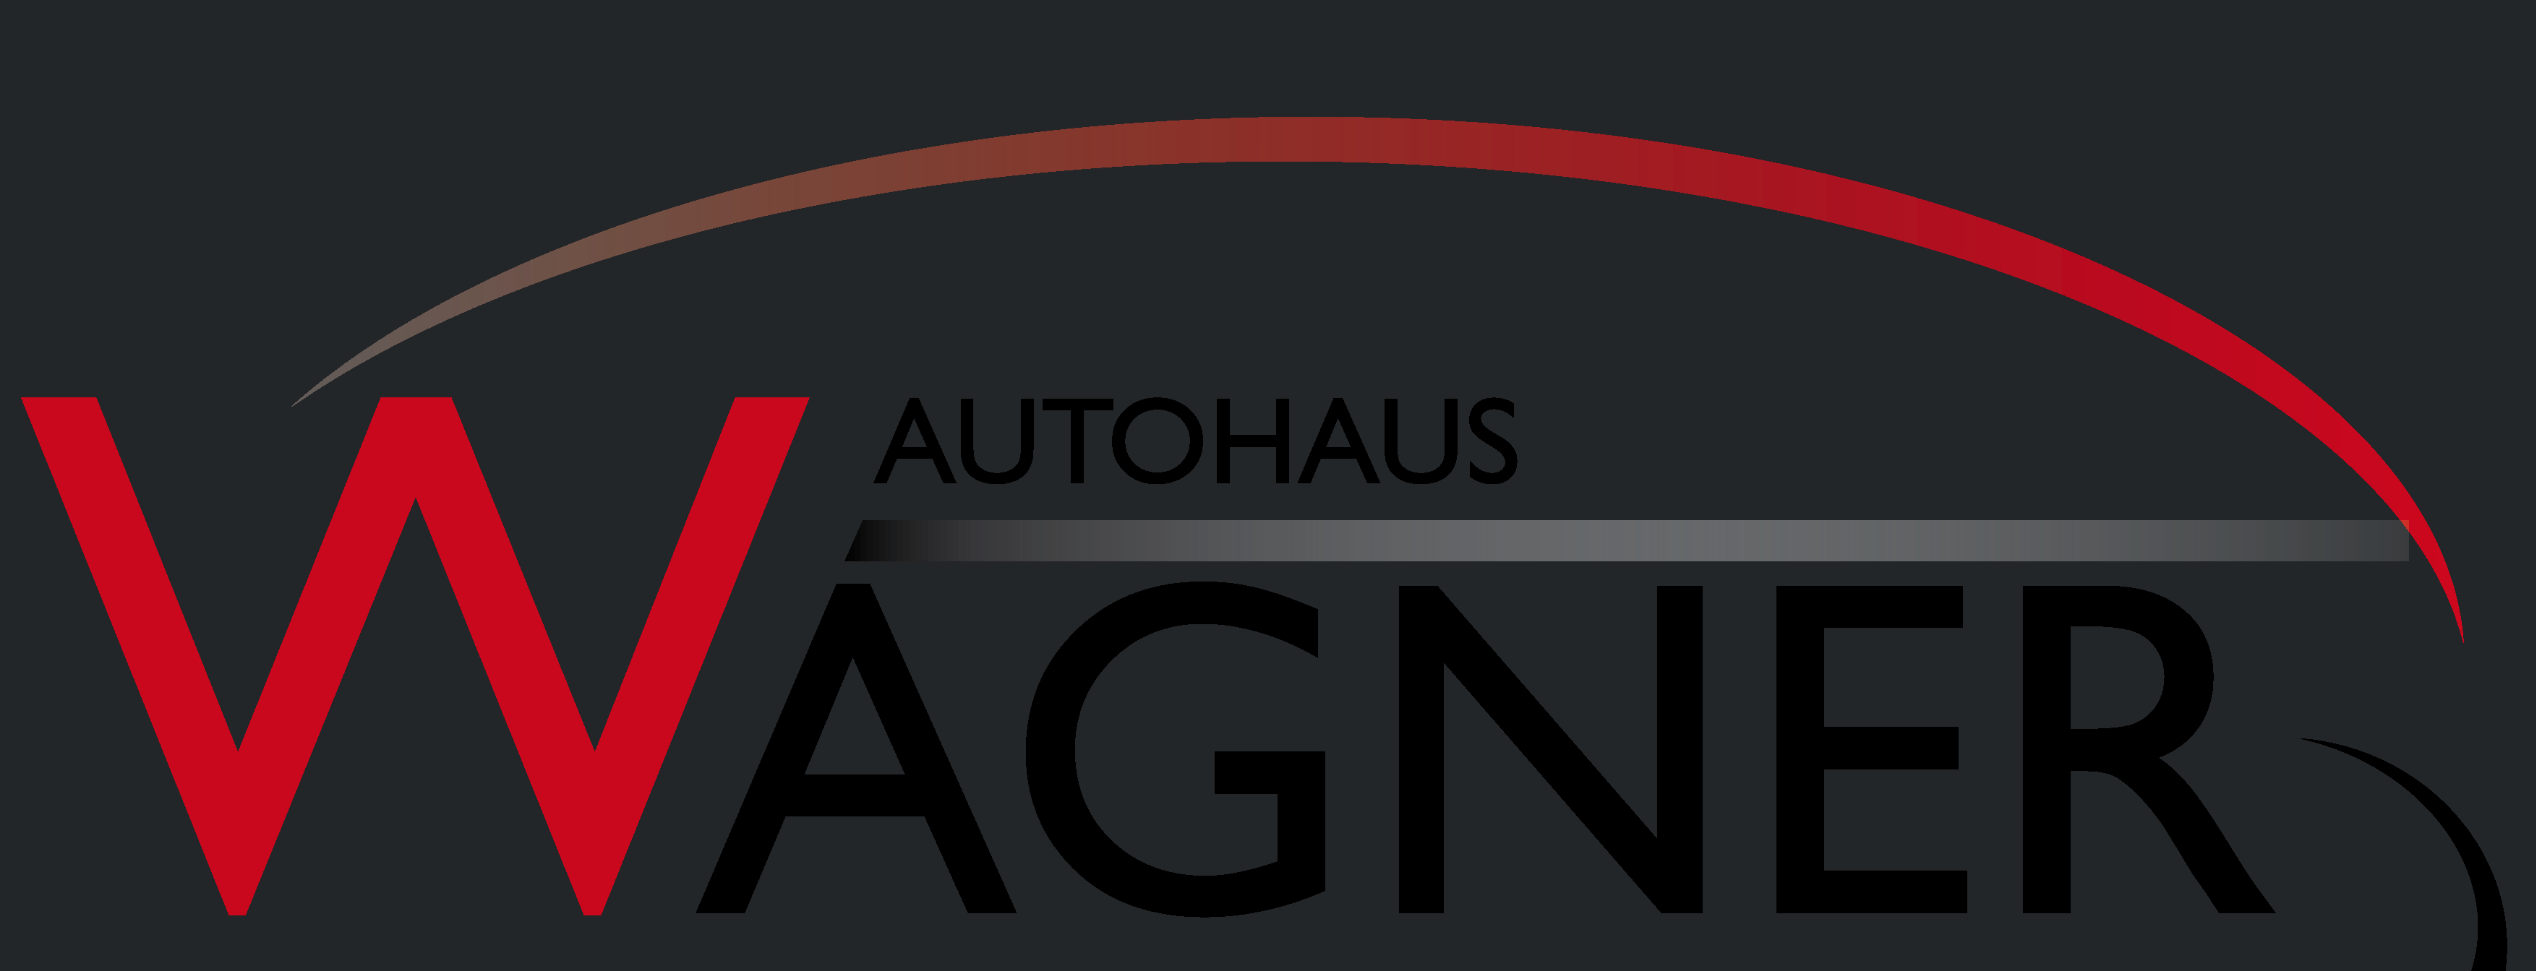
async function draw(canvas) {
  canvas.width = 2536;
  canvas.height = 971;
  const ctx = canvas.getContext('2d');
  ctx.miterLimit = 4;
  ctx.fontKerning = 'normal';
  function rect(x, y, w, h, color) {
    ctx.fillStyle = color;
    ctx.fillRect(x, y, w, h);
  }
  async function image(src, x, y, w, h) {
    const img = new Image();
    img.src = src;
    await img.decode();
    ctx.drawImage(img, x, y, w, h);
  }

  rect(0, 0, 2536, 971, '#232628');
  await image('assets/img1.png', 21, 117, 2487, 854);
}

draw(document.querySelector('canvas'));
